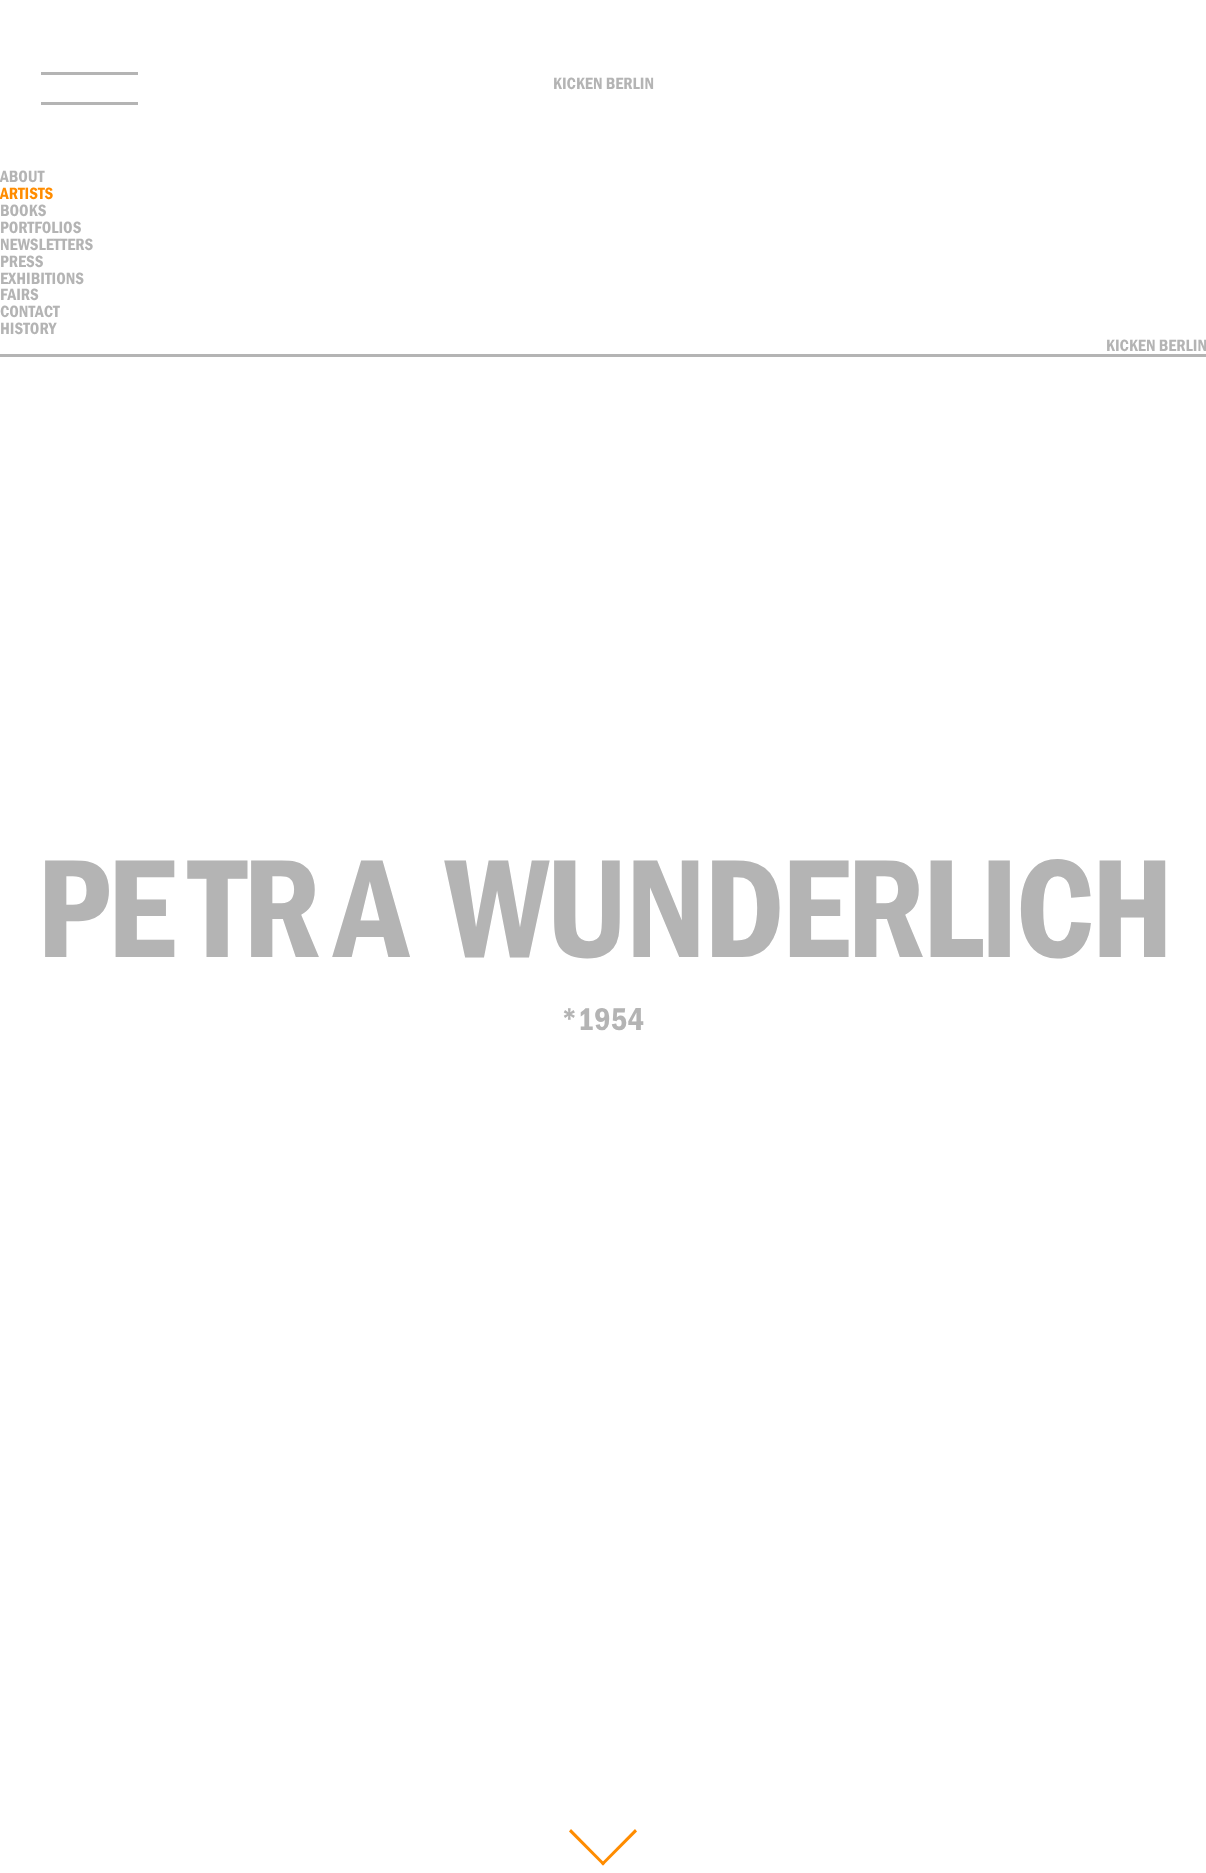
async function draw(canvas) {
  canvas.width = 1206;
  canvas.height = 1873;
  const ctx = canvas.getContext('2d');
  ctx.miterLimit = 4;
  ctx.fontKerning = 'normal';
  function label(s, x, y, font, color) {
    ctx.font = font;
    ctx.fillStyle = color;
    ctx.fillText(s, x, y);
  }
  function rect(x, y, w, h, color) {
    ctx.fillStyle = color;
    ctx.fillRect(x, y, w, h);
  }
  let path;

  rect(0, 0, 1206, 1873, '#fff');
  rect(0, 354, 1206, 3, '#b4b4b4');
  rect(41, 72, 97, 3, '#b4b4b4');
  label('KICKEN BERLIN', 553, 89, '17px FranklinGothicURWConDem', '#b4b4b4');
  rect(41, 102, 97, 3, '#b4b4b4');
  label('ABOUT', 0, 182, '17px FranklinGothicURWConDem', '#b4b4b4');
  label('ARTISTS', 0, 199, '17px FranklinGothicURWConDem', '#ff8c00');
  label('BOOKS', 0, 216, '17px FranklinGothicURWConDem', '#b4b4b4');
  label('PORTFOLIOS', 0, 233, '17px FranklinGothicURWConDem', '#b4b4b4');
  label('NEWSLETTERS', 0, 250, '17px FranklinGothicURWConDem', '#b4b4b4');
  label('PRESS', 0, 267, '17px FranklinGothicURWConDem', '#b4b4b4');
  label('EXHIBITIONS', 0, 284, '17px FranklinGothicURWConDem', '#b4b4b4');
  label('FAIRS', 0, 300, '17px FranklinGothicURWConDem', '#b4b4b4');
  label('CONTACT', 0, 317, '17px FranklinGothicURWConDem', '#b4b4b4');
  label('HISTORY', 0, 334, '17px FranklinGothicURWConDem', '#b4b4b4');
  label('KICKEN BERLIN', 1106, 351, '17px FranklinGothicURWConDem', '#b4b4b4');
  ctx.letterSpacing = '-3.6px';
  label('PE', 36, 957, '144.75px FranklinGothicURWConDem', '#b4b4b4');
  label('TR', 189, 957, '144.75px FranklinGothicURWConDem', '#b4b4b4');
  label('A', 335, 957, '144.75px FranklinGothicURWConDem', '#b4b4b4');
  label('WUNDERLICH', 445, 957, '144.75px FranklinGothicURWConDem', '#b4b4b4');
  ctx.letterSpacing = '0px';
  label('*1954', 561, 1030, '32.5px FranklinGothicURWConDem', '#b4b4b4');
  ctx.fillStyle = '#ff8c00';
  path = new Path2D('M635 1829L637 1831.5L603 1865.5L601 1863.5Z');
  ctx.fill(path);
  path = new Path2D('M571 1829L605 1863.5L603 1865.5L569 1831.5Z');
  ctx.fill(path);
}

draw(document.querySelector('canvas'));
